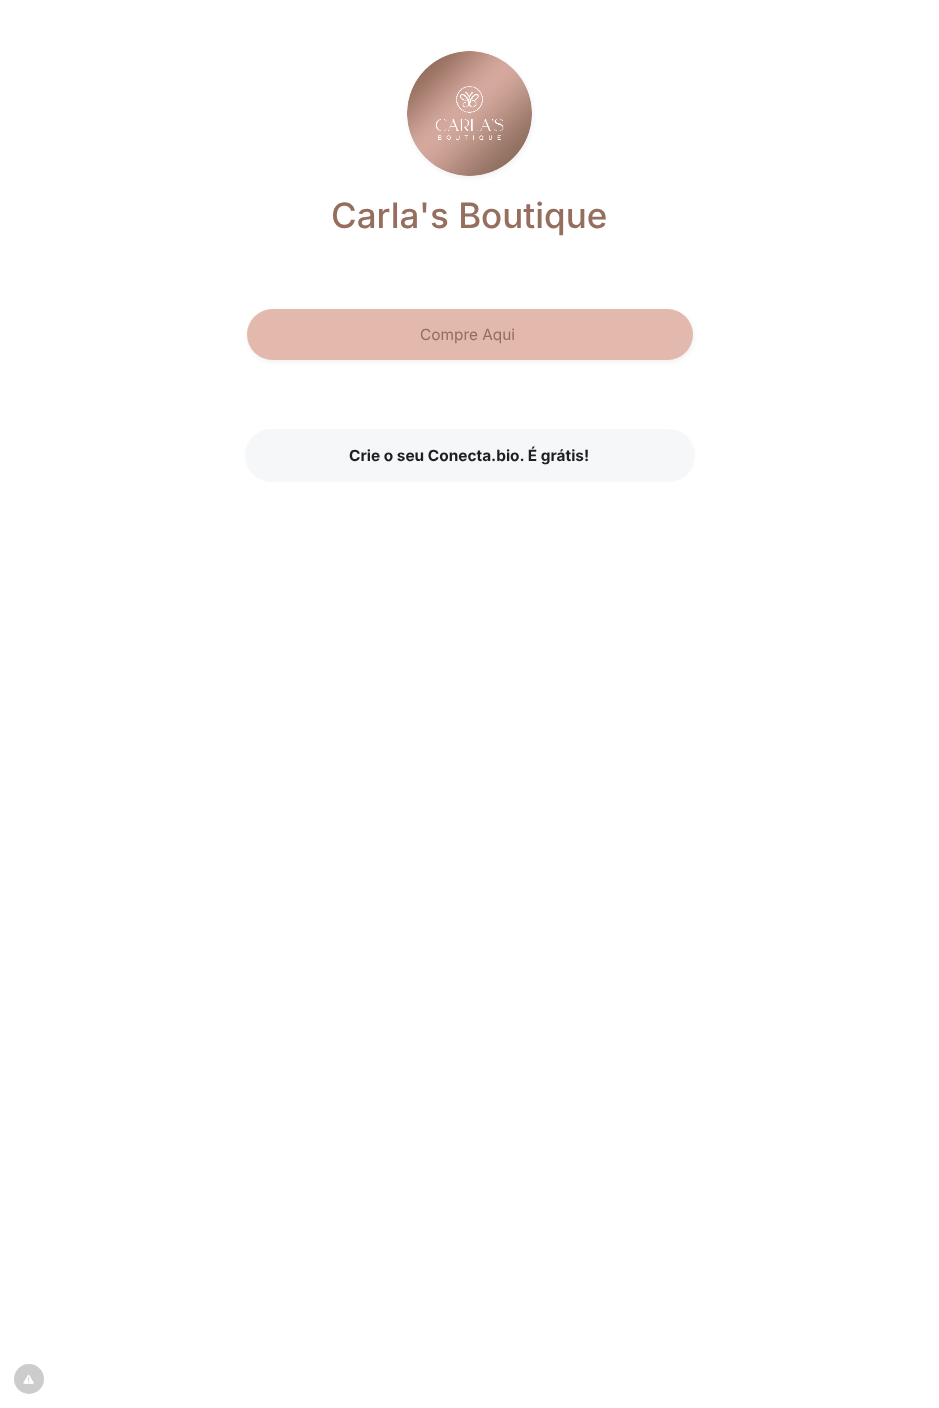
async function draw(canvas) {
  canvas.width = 939;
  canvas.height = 1408;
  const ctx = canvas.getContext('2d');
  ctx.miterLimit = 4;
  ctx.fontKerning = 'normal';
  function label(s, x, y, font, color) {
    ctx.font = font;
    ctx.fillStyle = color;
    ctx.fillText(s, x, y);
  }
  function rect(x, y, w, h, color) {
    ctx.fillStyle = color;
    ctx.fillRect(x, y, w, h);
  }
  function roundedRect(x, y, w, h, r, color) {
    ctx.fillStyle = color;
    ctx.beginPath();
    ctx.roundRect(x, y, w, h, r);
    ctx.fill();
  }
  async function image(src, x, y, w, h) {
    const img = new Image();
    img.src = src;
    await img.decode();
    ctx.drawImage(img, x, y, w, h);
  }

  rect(0, 0, 939, 1408, '#fff');
  ctx.fillStyle = '#0000000f';
  ctx.filter = 'blur(2.5px)';
  ctx.beginPath();
  ctx.roundRect(408, 53, 125, 125, 62.5);
  ctx.fill();
  ctx.filter = 'none';
  await image('assets/img1.png', 407, 51, 125, 125);
  label('Carla\'s Boutique', 331, 228, '500 35px Inter', '#956e5d');
  ctx.fillStyle = '#0000000f';
  ctx.filter = 'blur(2.5px)';
  ctx.beginPath();
  ctx.roundRect(248, 311, 446, 51, 25.5);
  ctx.fill();
  ctx.filter = 'none';
  roundedRect(247, 309, 446, 51, 25.5, '#e2b9ac');
  label('Compre Aqui ️', 420, 340, '15.4px Inter', '#956e5d');
  roundedRect(245, 429, 450, 53, 26.5, '#f6f7f8');
  label('Crie o seu Conecta.bio. É grátis!', 349, 461, 'bold 15.4px Inter', '#1d1f25');
  ctx.fillStyle = '#ccc';
  ctx.beginPath();
  ctx.arc(29, 1379, 15, 0, 2 * Math.PI);
  ctx.fill();
  await image('assets/img2.png', 23, 1374, 11, 10);
}

draw(document.querySelector('canvas'));
